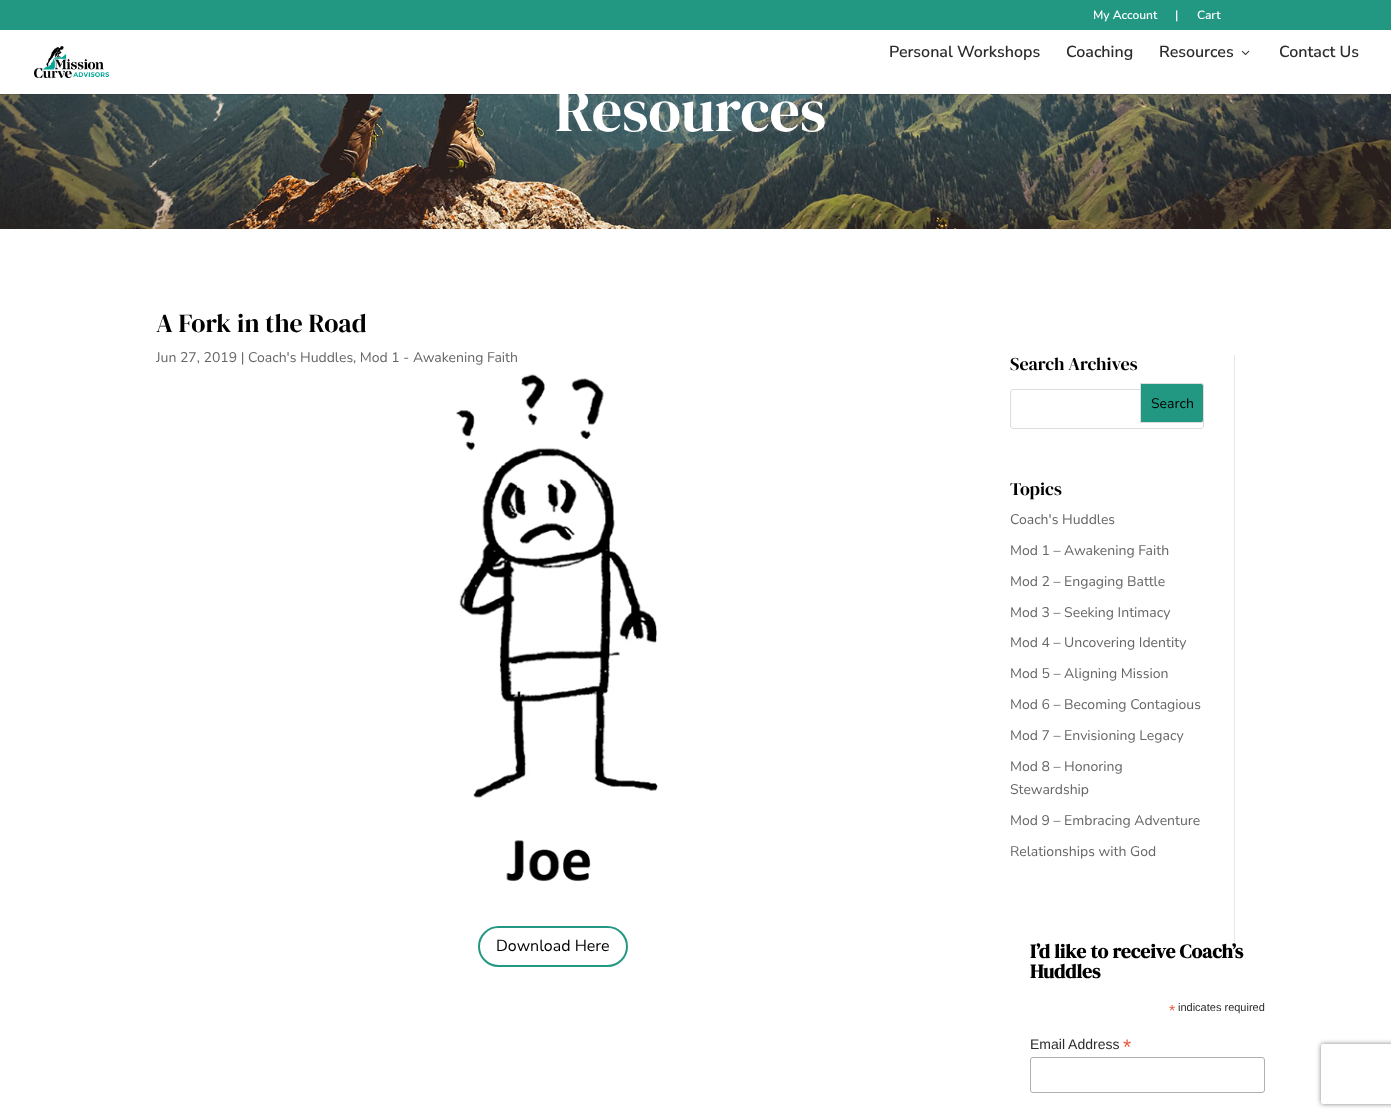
async function draw(canvas) {
  canvas.width = 1391;
  canvas.height = 1118;
  const ctx = canvas.getContext('2d');
  ctx.miterLimit = 4;
  ctx.fontKerning = 'normal';
  function label(s, x, y, font, color) {
    ctx.font = font;
    ctx.fillStyle = color;
    ctx.fillText(s, x, y);
  }
  function rect(x, y, w, h, color) {
    ctx.fillStyle = color;
    ctx.fillRect(x, y, w, h);
  }
  async function image(src, x, y, w, h) {
    const img = new Image();
    img.src = src;
    await img.decode();
    ctx.drawImage(img, x, y, w, h);
  }
  let path;

  rect(0, 0, 1391, 1118, '#fff');
  rect(0, 0, 1391, 30, '#229883');
  label('My Account', 1093, 19, '600 12px Nunito Sans', '#fff');
  label('|', 1175, 19, '600 12px Nunito Sans', '#fff');
  label('Cart', 1197, 19, '600 12px Nunito Sans', '#fff');
  await image('assets/img3.png', 0, 94, 1391, 135);
  rect(0, 94, 1391, 1, '#0000001a');
  await image('assets/img1.png', 34, 46, 75, 32);
  label('Personal Workshops', 889, 57, '600 16px Nunito Sans', '#2b2b2b');
  label('Coaching', 1066, 57, '600 16px Nunito Sans', '#2b2b2b');
  label('Resources', 1159, 57, '600 16px Nunito Sans', '#2b2b2b');
  await image('assets/img2.png', 1241, 50, 9, 5);
  label('Contact Us', 1279, 57, '600 16px Nunito Sans', '#2b2b2b');
  label('Resources', 555, 131, '60px DM Serif Display', '#fff');
  label('A Fork in the Road', 156, 332, '26px DM Serif Display', '#000');
  label('Jun 27, 2019 | Coach\'s Huddles, Mod 1 - Awakening Faith', 156, 362, '14px Nunito Sans', '#666');
  await image('assets/img4.png', 455, 374, 203, 508);
  ctx.beginPath();
  ctx.roundRect(479, 927, 148, 39, 19.5);
  ctx.strokeStyle = '#229883';
  ctx.lineWidth = 2;
  ctx.stroke();
  label('Download Here', 496, 951, '16px Nunito Sans', '#000');
  rect(1234, 355, 1, 587, '#e6e6e6');
  label('Search Archives', 1010, 370, '18px DM Serif Display', '#000');
  ctx.beginPath();
  ctx.roundRect(1010.5, 389.5, 193, 39, 2.5);
  ctx.strokeStyle = '#ddd';
  ctx.lineWidth = 1;
  ctx.stroke();
  ctx.fillStyle = '#229883';
  ctx.beginPath();
  ctx.roundRect(1140.5, 383.5, 63, 39, [0, 2.5, 2.5, 0]);
  ctx.fill();
  ctx.stroke();
  label('Search', 1151, 408, '14px Nunito Sans', '#000');
  label('Topics', 1010, 495, '18px DM Serif Display', '#000');
  label('Coach\'s Huddles', 1010, 524, '14px Nunito Sans', '#666');
  label('Mod 1 – Awakening Faith', 1010, 555, '14px Nunito Sans', '#666');
  label('Mod 2 – Engaging Battle', 1010, 586, '14px Nunito Sans', '#666');
  label('Mod 3 – Seeking Intimacy', 1010, 617, '14px Nunito Sans', '#666');
  label('Mod 4 – Uncovering Identity', 1010, 647, '14px Nunito Sans', '#666');
  label('Mod 5 – Aligning Mission', 1010, 678, '14px Nunito Sans', '#666');
  label('Mod 6 – Becoming Contagious', 1010, 709, '14px Nunito Sans', '#666');
  label('Mod 7 – Envisioning Legacy', 1010, 740, '14px Nunito Sans', '#666');
  label('Mod 8 – Honoring', 1010, 771, '14px Nunito Sans', '#666');
  label('Stewardship', 1010, 794, '14px Nunito Sans', '#666');
  label('Mod 9 – Embracing Adventure', 1010, 825, '14px Nunito Sans', '#666');
  label('Relationships with God', 1010, 856, '14px Nunito Sans', '#666');
  label('I’d like to receive Coach’s', 1030, 958, 'bold 19.6px DM Serif Display', '#000');
  label('Huddles', 1030, 978, 'bold 19.6px DM Serif Display', '#000');
  label('*', 1169, 1016, '16px Liberation Sans', '#e85c41');
  label('indicates required', 1178, 1011, '11px Liberation Sans', '#2b2b2b');
  label('Email Address', 1030, 1049, '14px Liberation Sans', '#2b2b2b');
  label('*', 1123, 1054, '21px Liberation Sans', '#e85c41');
  ctx.beginPath();
  ctx.roundRect(1030.5, 1057.5, 234, 35, 2.5);
  ctx.strokeStyle = '#abb0b2';
  ctx.stroke();
  ctx.save();
  path = new Path2D('M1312 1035H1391V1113H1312ZM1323 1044H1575C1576 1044 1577 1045 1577 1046V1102C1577 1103 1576 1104 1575 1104H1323C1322 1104 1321 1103 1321 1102V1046C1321 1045 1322 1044 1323 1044Z');
  ctx.clip(path, 'evenodd');
  ctx.fillStyle = '#808080';
  ctx.filter = 'blur(2.5px)';
  ctx.beginPath();
  ctx.roundRect(1321, 1044, 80, 60, 2);
  ctx.fill();
  ctx.filter = 'none';
  ctx.restore();
}

draw(document.querySelector('canvas'));
